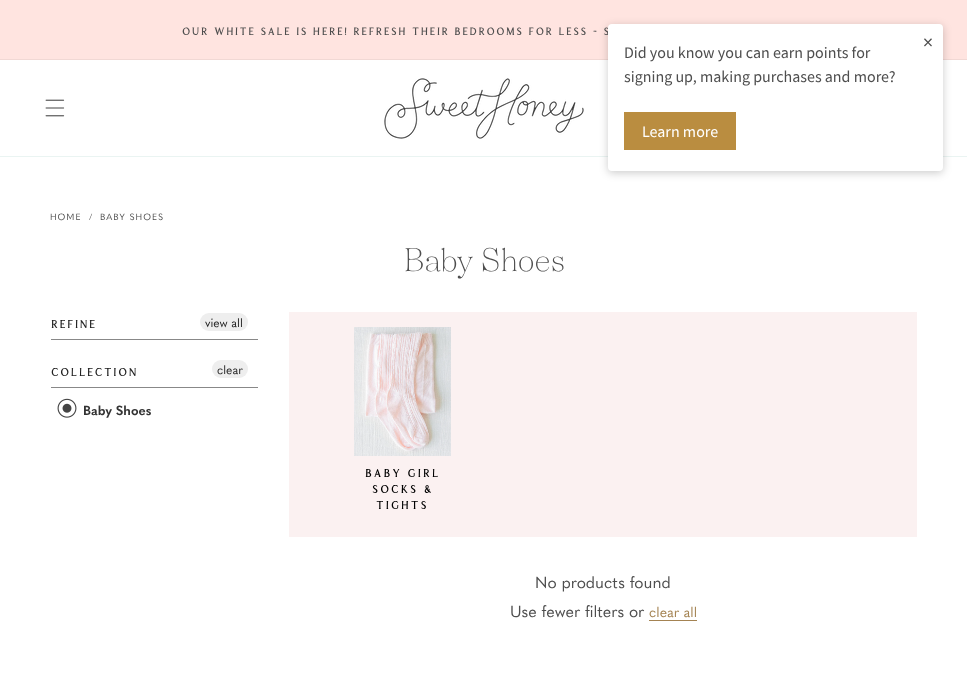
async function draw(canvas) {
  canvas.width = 967;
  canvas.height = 677;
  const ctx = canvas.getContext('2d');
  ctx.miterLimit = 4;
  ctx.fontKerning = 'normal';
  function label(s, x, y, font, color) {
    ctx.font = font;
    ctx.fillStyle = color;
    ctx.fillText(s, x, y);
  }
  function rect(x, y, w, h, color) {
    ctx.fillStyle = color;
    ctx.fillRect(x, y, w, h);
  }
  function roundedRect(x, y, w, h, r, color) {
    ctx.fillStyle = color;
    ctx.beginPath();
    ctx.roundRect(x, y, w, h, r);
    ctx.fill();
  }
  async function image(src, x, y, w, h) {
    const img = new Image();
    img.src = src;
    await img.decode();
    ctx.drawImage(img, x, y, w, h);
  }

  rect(0, 0, 967, 677, '#fff');
  rect(0, 0, 967, 59, '#ffe4e0');
  rect(0, 59, 967, 1, '#f1d8d4');
  ctx.letterSpacing = '1.5px';
  label('OUR WHITE SALE IS HERE! REFRESH THEIR BEDROOMS FOR LESS - S', 182, 35, 'bold 15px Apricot', '#4e4e4e');
  rect(0, 156, 967, 1, '#eaf4f2');
  ctx.fillStyle = '#00000033';
  ctx.filter = 'blur(4px)';
  ctx.beginPath();
  ctx.roundRect(608, 26, 335, 147, 4);
  ctx.fill();
  ctx.filter = 'none';
  roundedRect(608, 24, 335, 147, 4, '#fff');
  ctx.letterSpacing = '0px';
  label('×', 923, 49, '20px Source Sans Pro', '#4e4e4e');
  label('Did you know you can earn points for', 624, 58, '16px Source Sans Pro', '#4e4e4e');
  label('signing up, making purchases and more?', 624, 82, '16px Source Sans Pro', '#4e4e4e');
  rect(624, 112, 112, 38, '#ba8d40');
  label('Learn more', 642, 137, '16px Source Sans Pro', '#fff');
  await image('assets/img1.png', 45, 99, 20, 18);
  await image('assets/img2.png', 384, 78, 200, 61);
  ctx.letterSpacing = '1px';
  label('HOME', 50, 220, '9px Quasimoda', '#4e4e4e');
  label('/', 89, 220, '300 9px Quasimoda', '#4e4e4e');
  label('BABY SHOES', 100, 220, '9px Quasimoda', '#4e4e4e');
  ctx.letterSpacing = '0px';
  label('Baby Shoes', 403, 271, '300 36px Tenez', '#4e4e4e');
  rect(51, 339, 207, 1, '#888');
  ctx.letterSpacing = '1.6px';
  label('Refine', 51, 328, 'bold 16px Apricot', '#222');
  roundedRect(200, 313, 48, 18, 9, '#eee');
  ctx.letterSpacing = '0px';
  label('view all', 205, 327, '12px Quasimoda', '#222');
  roundedRect(212, 360, 36, 18, 9, '#eee');
  label('clear', 217, 374, '12px Quasimoda', '#222');
  await image('assets/img3.png', 57, 398, 20, 20);
  label('Baby Shoes', 83, 415, 'bold 13px Quasimoda', '#333');
  rect(51, 387, 207, 1, '#888');
  ctx.letterSpacing = '1.6px';
  label('Collection', 51, 376, 'bold 16px Apricot', '#222');
  rect(289, 312, 628, 225, '#fbf1f1');
  await image('assets/img4.png', 354, 327, 97, 129);
  ctx.letterSpacing = '2px';
  label('BABY GIRL', 365, 477, 'bold 16px Apricot', '#000');
  label('SOCKS &', 372, 493, 'bold 16px Apricot', '#000');
  label('TIGHTS', 376, 509, 'bold 16px Apricot', '#000');
  ctx.letterSpacing = '0px';
  label('No products found', 535, 588, '16px Quasimoda', '#4e4e4e');
  label('Use fewer filters or', 510, 617, '16px Quasimoda', '#4e4e4e');
  label('clear all', 649, 617, '14px Quasimoda', '#a48352');
  rect(649, 620, 48, 1, '#a48352');
}

draw(document.querySelector('canvas'));
